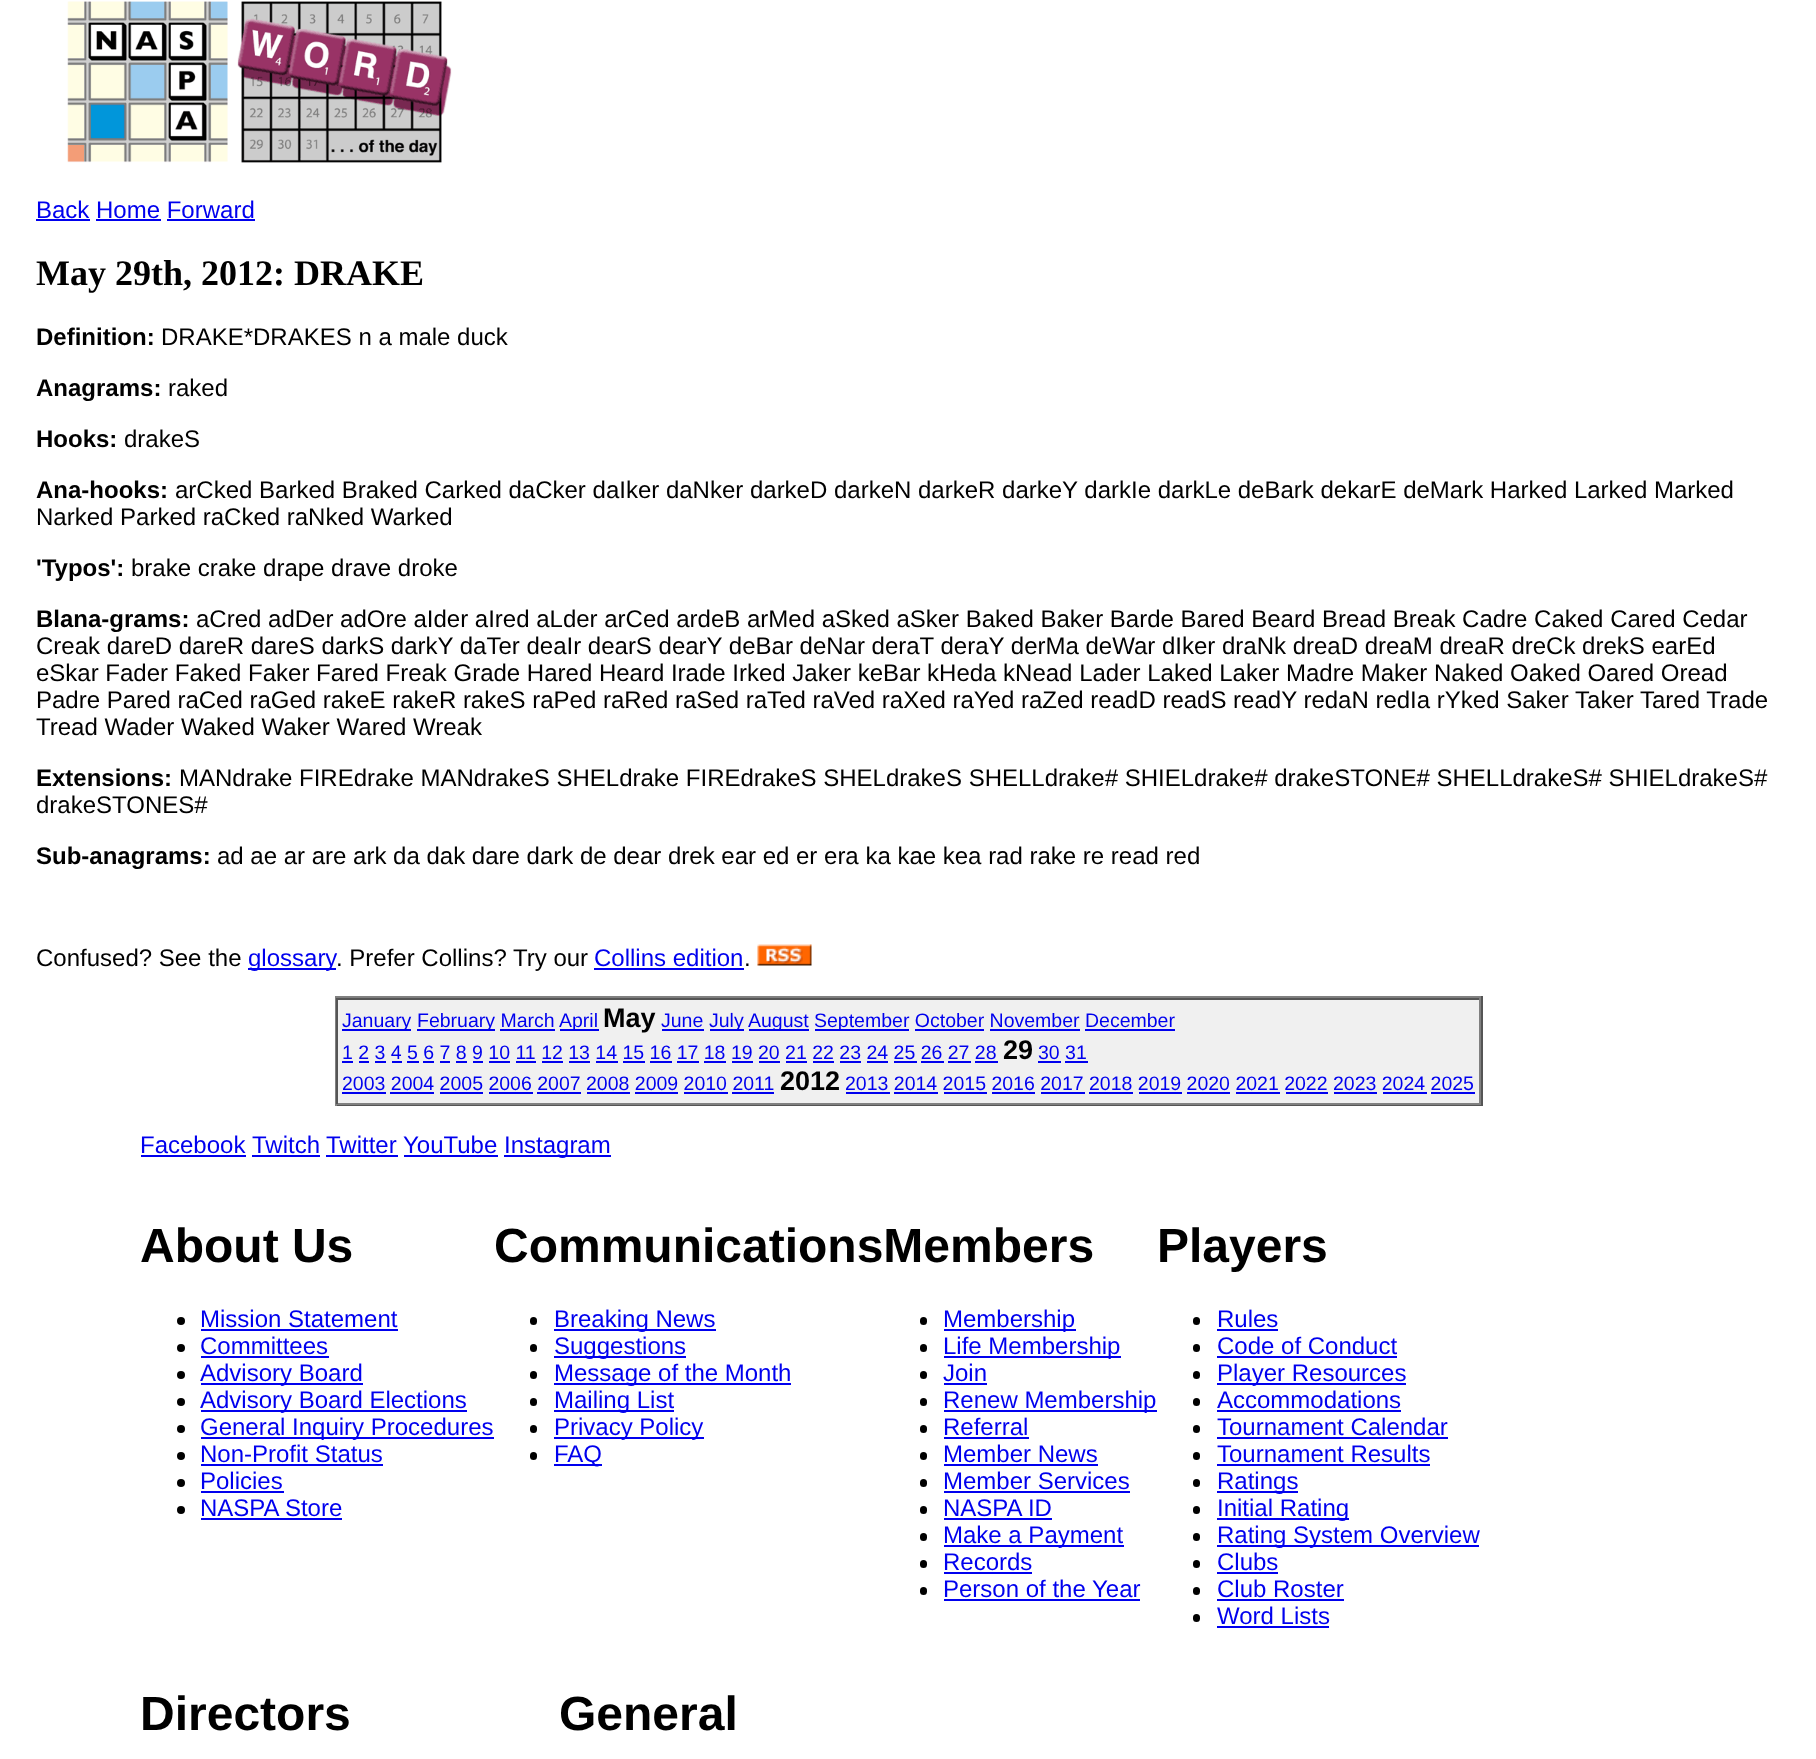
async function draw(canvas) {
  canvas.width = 1816;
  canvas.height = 1759;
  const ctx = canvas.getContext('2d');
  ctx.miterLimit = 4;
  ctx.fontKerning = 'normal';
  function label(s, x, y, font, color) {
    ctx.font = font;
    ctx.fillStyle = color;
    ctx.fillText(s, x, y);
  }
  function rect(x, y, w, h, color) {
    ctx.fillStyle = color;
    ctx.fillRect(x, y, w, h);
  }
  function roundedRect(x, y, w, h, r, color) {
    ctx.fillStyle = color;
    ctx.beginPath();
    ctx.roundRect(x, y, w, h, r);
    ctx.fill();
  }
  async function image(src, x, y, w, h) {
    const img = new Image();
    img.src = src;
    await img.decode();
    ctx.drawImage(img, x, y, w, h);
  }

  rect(0, 0, 1816, 1759, '#fff');
  await image('assets/img1.png', 67, 1, 385, 162);
  label('Back Home Forward', 36, 218, '24px Liberation Sans', '#00e');
  rect(36, 219, 54, 2, '#00e');
  rect(96, 219, 65, 2, '#00e');
  rect(167, 219, 88, 2, '#00e');
  label('May 29th, 2012: DRAKE', 36, 285, 'bold 36px Liberation Serif', '#000');
  label('Definition:', 36, 345, 'bold 24px Liberation Sans', '#000');
  label('DRAKE*DRAKES n a male duck', 161, 345, '24px Liberation Sans', '#000');
  label('Anagrams:', 36, 396, 'bold 24px Liberation Sans', '#000');
  label('raked', 168, 396, '24px Liberation Sans', '#000');
  label('Hooks:', 36, 447, 'bold 24px Liberation Sans', '#000');
  label('drakeS', 124, 447, '24px Liberation Sans', '#000');
  label('Ana-hooks:', 36, 498, 'bold 24px Liberation Sans', '#000');
  label('arCked Barked Braked Carked daCker daIker daNker darkeD darkeN darkeR darkeY darkIe darkLe deBark dekarE deMark Harked Larked Marked', 175, 498, '24px Liberation Sans', '#000');
  label('Narked Parked raCked raNked Warked', 36, 525, '24px Liberation Sans', '#000');
  label('\'Typos\':', 36, 576, 'bold 24px Liberation Sans', '#000');
  label('brake crake drape drave droke', 131, 576, '24px Liberation Sans', '#000');
  label('Blana-grams:', 36, 627, 'bold 24px Liberation Sans', '#000');
  label('aCred adDer adOre aIder aIred aLder arCed ardeB arMed aSked aSker Baked Baker Barde Bared Beard Bread Break Cadre Caked Cared Cedar', 196, 627, '24px Liberation Sans', '#000');
  label('Creak dareD dareR dareS darkS darkY daTer deaIr dearS dearY deBar deNar deraT deraY derMa deWar dIker draNk dreaD dreaM dreaR dreCk drekS earEd', 36, 654, '24px Liberation Sans', '#000');
  label('eSkar Fader Faked Faker Fared Freak Grade Hared Heard Irade Irked Jaker keBar kHeda kNead Lader Laked Laker Madre Maker Naked Oaked Oared Oread', 36, 681, '24px Liberation Sans', '#000');
  label('Padre Pared raCed raGed rakeE rakeR rakeS raPed raRed raSed raTed raVed raXed raYed raZed readD readS readY redaN redIa rYked Saker Taker Tared Trade', 36, 708, '24px Liberation Sans', '#000');
  label('Tread Wader Waked Waker Wared Wreak', 36, 735, '24px Liberation Sans', '#000');
  label('Extensions:', 36, 786, 'bold 24px Liberation Sans', '#000');
  label('MANdrake FIREdrake MANdrakeS SHELdrake FIREdrakeS SHELdrakeS SHELLdrake# SHIELdrake# drakeSTONE# SHELLdrakeS# SHIELdrakeS#', 179, 786, '24px Liberation Sans', '#000');
  label('drakeSTONES#', 36, 813, '24px Liberation Sans', '#000');
  label('Sub-anagrams:', 36, 864, 'bold 24px Liberation Sans', '#000');
  label('ad ae ar are ark da dak dare dark de dear drek ear ed er era ka kae kea rad rake re read red', 217, 864, '24px Liberation Sans', '#000');
  label('Confused? See the', 36, 966, '24px Liberation Sans', '#000');
  rect(248, 968, 88, 2, '#00e');
  label('glossary', 248, 966, '24px Liberation Sans', '#00e');
  label('. Prefer Collins? Try our', 336, 966, '24px Liberation Sans', '#000');
  label('Collins edition', 594, 966, '24px Liberation Sans', '#00e');
  rect(594, 968, 150, 2, '#00e');
  label('.', 744, 966, '24px Liberation Sans', '#000');
  await image('assets/img2.png', 757, 944, 55, 22);
  rect(338, 1000, 1141, 103, '#f0f0f0');
  rect(335, 996, 1147, 2, '#808080');
  rect(1481, 996, 2, 110, '#555');
  rect(335, 1104, 1147, 2, '#555');
  rect(335, 996, 2, 110, '#808080');
  rect(336, 998, 1145, 2, '#555');
  rect(1479, 998, 2, 106, '#808080');
  rect(336, 1103, 1145, 2, '#808080');
  rect(336, 998, 2, 106, '#555');
  rect(342, 1029, 69, 2, '#00e');
  label('January', 342, 1027, '19.5px Liberation Sans', '#00e');
  rect(417, 1029, 78, 2, '#00e');
  label('February March', 417, 1027, '19.5px Liberation Sans', '#00e');
  rect(500, 1029, 55, 2, '#00e');
  rect(560, 1029, 39, 2, '#00e');
  label('April', 559, 1027, '19.5px Liberation Sans', '#00e');
  label('May', 603, 1027, 'bold 27px Liberation Sans', '#000');
  label('June', 661, 1027, '19.5px Liberation Sans', '#00e');
  rect(662, 1029, 42, 2, '#00e');
  rect(710, 1029, 34, 2, '#00e');
  label('July', 709, 1027, '19.5px Liberation Sans', '#00e');
  rect(749, 1029, 60, 2, '#00e');
  label('August', 748, 1027, '19.5px Liberation Sans', '#00e');
  rect(815, 1029, 94, 2, '#00e');
  label('September October November December', 814, 1027, '19.5px Liberation Sans', '#00e');
  rect(915, 1029, 69, 2, '#00e');
  rect(990, 1029, 90, 2, '#00e');
  rect(1085, 1029, 90, 2, '#00e');
  label('1 2 3 4 5 6 7 8 9 10 11 12 13 14 15 16 17 18 19 20 21 22 23 24 25 26 27 28', 342, 1059, '19.5px Liberation Sans', '#00e');
  rect(342, 1061, 11, 2, '#00e');
  rect(359, 1061, 10, 2, '#00e');
  rect(375, 1061, 11, 2, '#00e');
  rect(392, 1061, 10, 2, '#00e');
  rect(407, 1061, 12, 2, '#00e');
  rect(423, 1061, 11, 2, '#00e');
  rect(440, 1061, 10, 2, '#00e');
  rect(456, 1061, 11, 2, '#00e');
  rect(473, 1061, 10, 2, '#00e');
  rect(489, 1061, 21, 2, '#00e');
  rect(516, 1061, 20, 2, '#00e');
  rect(542, 1061, 21, 2, '#00e');
  rect(569, 1061, 21, 2, '#00e');
  rect(596, 1061, 22, 2, '#00e');
  rect(623, 1061, 22, 2, '#00e');
  rect(650, 1061, 22, 2, '#00e');
  rect(677, 1061, 22, 2, '#00e');
  rect(704, 1061, 22, 2, '#00e');
  rect(732, 1061, 21, 2, '#00e');
  rect(759, 1061, 21, 2, '#00e');
  rect(786, 1061, 21, 2, '#00e');
  rect(813, 1061, 21, 2, '#00e');
  rect(840, 1061, 21, 2, '#00e');
  rect(867, 1061, 21, 2, '#00e');
  rect(894, 1061, 23, 2, '#00e');
  rect(921, 1061, 23, 2, '#00e');
  rect(948, 1061, 23, 2, '#00e');
  rect(975, 1061, 23, 2, '#00e');
  label('29', 1003, 1059, 'bold 27px Liberation Sans', '#000');
  label('30 31', 1038, 1059, '19.5px Liberation Sans', '#00e');
  rect(1038, 1061, 23, 2, '#00e');
  rect(1065, 1061, 23, 2, '#00e');
  label('2003 2004 2005 2006 2007 2008 2009 2010 2011', 342, 1090, '19.5px Liberation Sans', '#00e');
  rect(342, 1092, 44, 2, '#00e');
  rect(390, 1092, 44, 2, '#00e');
  rect(440, 1092, 43, 2, '#00e');
  rect(489, 1092, 44, 2, '#00e');
  rect(537, 1092, 44, 2, '#00e');
  rect(587, 1092, 43, 2, '#00e');
  rect(635, 1092, 43, 2, '#00e');
  rect(684, 1092, 44, 2, '#00e');
  rect(732, 1092, 42, 2, '#00e');
  label('2012', 780, 1090, 'bold 27px Liberation Sans', '#000');
  label('2013 2014 2015 2016 2017 2018 2019 2020 2021 2022 2023 2024 2025', 845, 1090, '19.5px Liberation Sans', '#00e');
  rect(846, 1092, 44, 2, '#00e');
  rect(894, 1092, 44, 2, '#00e');
  rect(944, 1092, 43, 2, '#00e');
  rect(992, 1092, 43, 2, '#00e');
  rect(1041, 1092, 44, 2, '#00e');
  rect(1089, 1092, 44, 2, '#00e');
  rect(1139, 1092, 43, 2, '#00e');
  rect(1187, 1092, 43, 2, '#00e');
  rect(1236, 1092, 44, 2, '#00e');
  rect(1286, 1092, 42, 2, '#00e');
  rect(1334, 1092, 43, 2, '#00e');
  rect(1383, 1092, 44, 2, '#00e');
  rect(1431, 1092, 44, 2, '#00e');
  label('Facebook', 140, 1153, '24px Liberation Sans', '#00e');
  rect(141, 1155, 105, 2, '#00e');
  label('Twitch', 252, 1153, '24px Liberation Sans', '#00e');
  rect(252, 1155, 68, 2, '#00e');
  label('Twitter', 326, 1153, '24px Liberation Sans', '#00e');
  rect(326, 1155, 72, 2, '#00e');
  label('YouTube', 403, 1153, '24px Liberation Sans', '#00e');
  rect(404, 1155, 94, 2, '#00e');
  rect(504, 1155, 107, 2, '#00e');
  label('Instagram', 504, 1153, '24px Liberation Sans', '#00e');
  label('About Us', 140, 1262, 'bold 48px Liberation Sans', '#000');
  ctx.beginPath();
  ctx.arc(181, 1321, 4, 0, 2 * Math.PI);
  ctx.fill();
  label('Mission Statement', 200, 1327, '24px Liberation Sans', '#00e');
  rect(201, 1329, 197, 2, '#00e');
  ctx.fillStyle = '#000';
  ctx.beginPath();
  ctx.arc(181, 1348, 4, 0, 2 * Math.PI);
  ctx.fill();
  label('Committees', 200, 1354, '24px Liberation Sans', '#00e');
  rect(201, 1356, 128, 2, '#00e');
  ctx.fillStyle = '#000';
  ctx.beginPath();
  ctx.arc(181, 1375, 4, 0, 2 * Math.PI);
  ctx.fill();
  rect(201, 1383, 162, 2, '#00e');
  label('Advisory Board', 200, 1381, '24px Liberation Sans', '#00e');
  ctx.fillStyle = '#000';
  ctx.beginPath();
  ctx.arc(181, 1402, 4, 0, 2 * Math.PI);
  ctx.fill();
  rect(201, 1410, 266, 2, '#00e');
  label('Advisory Board Elections', 200, 1408, '24px Liberation Sans', '#00e');
  ctx.fillStyle = '#000';
  ctx.beginPath();
  ctx.arc(181, 1429, 4, 0, 2 * Math.PI);
  ctx.fill();
  rect(201, 1437, 293, 2, '#00e');
  label('General Inquiry Procedures', 200, 1435, '24px Liberation Sans', '#00e');
  ctx.fillStyle = '#000';
  ctx.beginPath();
  ctx.arc(181, 1456, 4, 0, 2 * Math.PI);
  ctx.fill();
  label('Non-Profit Status', 200, 1462, '24px Liberation Sans', '#00e');
  rect(201, 1464, 182, 2, '#00e');
  ctx.fillStyle = '#000';
  ctx.beginPath();
  ctx.arc(181, 1483, 4, 0, 2 * Math.PI);
  ctx.fill();
  label('Policies', 200, 1489, '24px Liberation Sans', '#00e');
  rect(201, 1491, 83, 2, '#00e');
  ctx.fillStyle = '#000';
  ctx.beginPath();
  ctx.arc(181, 1510, 4, 0, 2 * Math.PI);
  ctx.fill();
  label('NASPA Store', 200, 1516, '24px Liberation Sans', '#00e');
  rect(201, 1518, 141, 2, '#00e');
  label('CommunicationsMembers', 494, 1262, 'bold 48px Liberation Sans', '#000');
  roundedRect(530, 1317, 7, 8, 3.5, '#000');
  rect(554, 1329, 162, 2, '#00e');
  label('Breaking News', 554, 1327, '24px Liberation Sans', '#00e');
  roundedRect(530, 1344, 7, 8, 3.5, '#000');
  rect(554, 1356, 132, 2, '#00e');
  label('Suggestions', 554, 1354, '24px Liberation Sans', '#00e');
  roundedRect(530, 1371, 7, 8, 3.5, '#000');
  rect(554, 1383, 237, 2, '#00e');
  label('Message of the Month', 554, 1381, '24px Liberation Sans', '#00e');
  roundedRect(530, 1398, 7, 8, 3.5, '#000');
  rect(554, 1410, 120, 2, '#00e');
  label('Mailing List', 554, 1408, '24px Liberation Sans', '#00e');
  roundedRect(530, 1425, 7, 8, 3.5, '#000');
  rect(554, 1437, 150, 2, '#00e');
  label('Privacy Policy', 554, 1435, '24px Liberation Sans', '#00e');
  roundedRect(530, 1452, 7, 8, 3.5, '#000');
  rect(554, 1464, 48, 2, '#00e');
  label('FAQ', 554, 1462, '24px Liberation Sans', '#00e');
  label('Players', 1157, 1262, 'bold 48px Liberation Sans', '#000');
  roundedRect(1193, 1317, 7, 8, 3.5, '#000');
  label('Rules', 1217, 1327, '24px Liberation Sans', '#00e');
  rect(1217, 1329, 61, 2, '#00e');
  roundedRect(1193, 1344, 7, 8, 3.5, '#000');
  label('Code of Conduct', 1217, 1354, '24px Liberation Sans', '#00e');
  rect(1217, 1356, 180, 2, '#00e');
  roundedRect(1193, 1371, 7, 8, 3.5, '#000');
  rect(1217, 1383, 189, 2, '#00e');
  label('Player Resources', 1217, 1381, '24px Liberation Sans', '#00e');
  roundedRect(1193, 1398, 7, 8, 3.5, '#000');
  label('Accommodations', 1217, 1408, '24px Liberation Sans', '#00e');
  rect(1217, 1410, 184, 2, '#00e');
  roundedRect(1193, 1425, 7, 8, 3.5, '#000');
  label('Tournament Calendar', 1217, 1435, '24px Liberation Sans', '#00e');
  rect(1217, 1437, 231, 2, '#00e');
  roundedRect(1193, 1452, 7, 8, 3.5, '#000');
  label('Tournament Results', 1217, 1462, '24px Liberation Sans', '#00e');
  rect(1217, 1464, 213, 2, '#00e');
  roundedRect(1193, 1479, 7, 8, 3.5, '#000');
  rect(1217, 1491, 81, 2, '#00e');
  label('Ratings', 1217, 1489, '24px Liberation Sans', '#00e');
  roundedRect(1193, 1506, 7, 8, 3.5, '#000');
  rect(1217, 1518, 132, 2, '#00e');
  label('Initial Rating', 1217, 1516, '24px Liberation Sans', '#00e');
  roundedRect(1193, 1533, 7, 8, 3.5, '#000');
  rect(1217, 1545, 262, 2, '#00e');
  label('Rating System Overview', 1217, 1543, '24px Liberation Sans', '#00e');
  roundedRect(1193, 1560, 7, 8, 3.5, '#000');
  label('Clubs', 1217, 1570, '24px Liberation Sans', '#00e');
  rect(1217, 1572, 61, 2, '#00e');
  roundedRect(1193, 1587, 7, 8, 3.5, '#000');
  label('Club Roster', 1217, 1597, '24px Liberation Sans', '#00e');
  rect(1217, 1599, 127, 2, '#00e');
  roundedRect(1193, 1614, 7, 8, 3.5, '#000');
  label('Word Lists', 1217, 1624, '24px Liberation Sans', '#00e');
  rect(1217, 1626, 112, 2, '#00e');
  roundedRect(920, 1317, 7, 8, 3.5, '#000');
  rect(944, 1329, 132, 2, '#00e');
  label('Membership', 943, 1327, '24px Liberation Sans', '#00e');
  roundedRect(920, 1344, 7, 8, 3.5, '#000');
  rect(944, 1356, 177, 2, '#00e');
  label('Life Membership', 943, 1354, '24px Liberation Sans', '#00e');
  roundedRect(920, 1371, 7, 8, 3.5, '#000');
  label('Join', 943, 1381, '24px Liberation Sans', '#00e');
  rect(944, 1383, 43, 2, '#00e');
  roundedRect(920, 1398, 7, 8, 3.5, '#000');
  rect(944, 1410, 213, 2, '#00e');
  label('Renew Membership', 943, 1408, '24px Liberation Sans', '#00e');
  roundedRect(920, 1425, 7, 8, 3.5, '#000');
  label('Referral', 943, 1435, '24px Liberation Sans', '#00e');
  rect(944, 1437, 85, 2, '#00e');
  roundedRect(920, 1452, 7, 8, 3.5, '#000');
  label('Member News', 943, 1462, '24px Liberation Sans', '#00e');
  rect(944, 1464, 154, 2, '#00e');
  roundedRect(920, 1479, 7, 8, 3.5, '#000');
  label('Member Services', 943, 1489, '24px Liberation Sans', '#00e');
  rect(944, 1491, 186, 2, '#00e');
  roundedRect(920, 1506, 7, 8, 3.5, '#000');
  label('NASPA ID', 943, 1516, '24px Liberation Sans', '#00e');
  rect(944, 1518, 108, 2, '#00e');
  roundedRect(920, 1533, 7, 8, 3.5, '#000');
  rect(944, 1545, 180, 2, '#00e');
  label('Make a Payment', 943, 1543, '24px Liberation Sans', '#00e');
  roundedRect(920, 1560, 7, 8, 3.5, '#000');
  label('Records', 943, 1570, '24px Liberation Sans', '#00e');
  rect(944, 1572, 88, 2, '#00e');
  roundedRect(920, 1587, 7, 8, 3.5, '#000');
  label('Person of the Year', 943, 1597, '24px Liberation Sans', '#00e');
  rect(944, 1599, 196, 2, '#00e');
  label('Directors', 140, 1730, 'bold 48px Liberation Sans', '#000');
  label('General', 559, 1730, 'bold 48px Liberation Sans', '#000');
}

draw(document.querySelector('canvas'));
